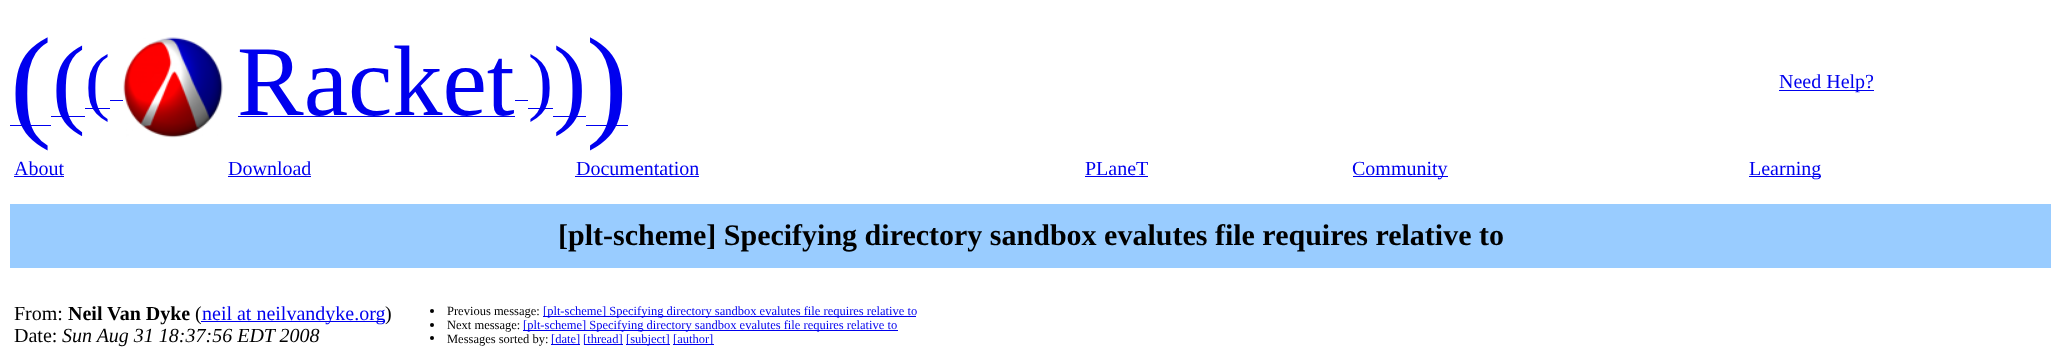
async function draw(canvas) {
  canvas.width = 2061;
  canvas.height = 358;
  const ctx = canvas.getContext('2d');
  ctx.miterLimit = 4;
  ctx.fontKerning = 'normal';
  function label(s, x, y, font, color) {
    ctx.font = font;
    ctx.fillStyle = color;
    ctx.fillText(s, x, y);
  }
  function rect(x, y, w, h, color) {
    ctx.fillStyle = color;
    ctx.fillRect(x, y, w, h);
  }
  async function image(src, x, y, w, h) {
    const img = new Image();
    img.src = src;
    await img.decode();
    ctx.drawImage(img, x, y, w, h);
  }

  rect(0, 0, 2061, 358, '#fff');
  rect(10, 125, 41, 1, '#00e');
  label('(', 10, 124, '125px Liberation Serif', '#00e');
  rect(51, 116, 34, 1, '#00e');
  label('(', 52, 115, '100px Liberation Serif', '#00e');
  rect(85, 108, 25, 1, '#00e');
  label('(', 85, 106, '75px Liberation Serif', '#00e');
  rect(110, 100, 13, 1, '#00e');
  await image('assets/img1.png', 123, 37, 100, 101);
  label('Racket', 237, 115, '100px Liberation Serif', '#00e');
  rect(528, 108, 25, 1, '#00e');
  label(')', 528, 106, '75px Liberation Serif', '#00e');
  rect(238, 116, 277, 1, '#00e');
  rect(515, 100, 13, 1, '#00e');
  rect(553, 116, 33, 1, '#00e');
  label(')', 553, 115, '100px Liberation Serif', '#00e');
  rect(586, 125, 42, 1, '#00e');
  label(')', 586, 124, '125px Liberation Serif', '#00e');
  rect(1779, 90, 95, 1, '#00e');
  label('Need Help?', 1779, 88, '20px Liberation Serif', '#00e');
  label('About', 14, 175, '20px Liberation Serif', '#00e');
  rect(14, 176, 50, 1, '#00e');
  label('Download', 228, 175, '20px Liberation Serif', '#00e');
  rect(228, 176, 83, 1, '#00e');
  label('Documentation', 576, 175, '20px Liberation Serif', '#00e');
  rect(575, 176, 124, 1, '#00e');
  label('PLaneT', 1085, 175, '20px Liberation Serif', '#00e');
  rect(1085, 176, 63, 1, '#00e');
  rect(1353, 176, 95, 1, '#00e');
  label('Community', 1352, 175, '20px Liberation Serif', '#00e');
  rect(1749, 176, 72, 1, '#00e');
  label('Learning', 1749, 175, '20px Liberation Serif', '#00e');
  rect(10, 204, 2041, 64, '#9cf');
  label('[plt-scheme] Specifying directory sandbox evalutes file requires relative to', 558, 245, 'bold 30px Liberation Serif', '#000');
  label('From:', 14, 320, '20px Liberation Serif', '#000');
  label('Neil Van Dyke', 68, 320, 'bold 20px Liberation Serif', '#000');
  label('(', 195, 320, '20px Liberation Serif', '#000');
  rect(201, 321, 184, 1, '#00e');
  label('neil at neilvandyke.org', 202, 320, '20px Liberation Serif', '#00e');
  label(')', 385, 320, '20px Liberation Serif', '#000');
  label('Date:', 14, 342, '20px Liberation Serif', '#000');
  label('Sun Aug 31 18:37:56 EDT 2008', 62, 342, 'italic 20px Liberation Serif', '#000');
  ctx.beginPath();
  ctx.arc(432, 311, 2, 0, 2 * Math.PI);
  ctx.fill();
  label('Previous message:', 447, 315, '12.5px Liberation Serif', '#000');
  rect(543, 316, 373, 1, '#00e');
  label('[plt-scheme] Specifying directory sandbox evalutes file requires relative to', 543, 315, '12.5px Liberation Serif', '#00e');
  ctx.fillStyle = '#000';
  ctx.beginPath();
  ctx.arc(432, 325, 2, 0, 2 * Math.PI);
  ctx.fill();
  label('Next message:', 447, 329, '12.5px Liberation Serif', '#000');
  rect(523, 330, 375, 1, '#00e');
  label('[plt-scheme] Specifying directory sandbox evalutes file requires relative to', 523, 329, '12.5px Liberation Serif', '#00e');
  ctx.fillStyle = '#000';
  ctx.beginPath();
  ctx.arc(432, 338, 2, 0, 2 * Math.PI);
  ctx.fill();
  label('Messages sorted by:', 447, 343, '12.5px Liberation Serif', '#000');
  rect(551, 344, 29, 1, '#00e');
  label('[date]', 551, 343, '12.5px Liberation Serif', '#00e');
  rect(584, 344, 39, 1, '#00e');
  label('[thread]', 583, 343, '12.5px Liberation Serif', '#00e');
  rect(626, 344, 44, 1, '#00e');
  label('[subject]', 626, 343, '12.5px Liberation Serif', '#00e');
  rect(673, 344, 41, 1, '#00e');
  label('[author]', 673, 343, '12.5px Liberation Serif', '#00e');
}

draw(document.querySelector('canvas'));
